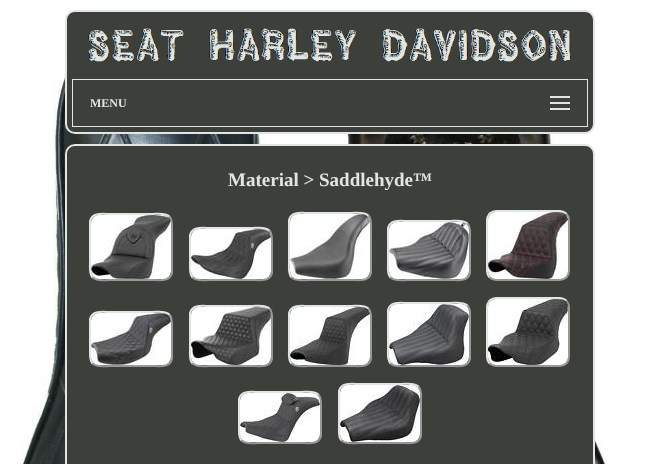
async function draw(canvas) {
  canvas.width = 646;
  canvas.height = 464;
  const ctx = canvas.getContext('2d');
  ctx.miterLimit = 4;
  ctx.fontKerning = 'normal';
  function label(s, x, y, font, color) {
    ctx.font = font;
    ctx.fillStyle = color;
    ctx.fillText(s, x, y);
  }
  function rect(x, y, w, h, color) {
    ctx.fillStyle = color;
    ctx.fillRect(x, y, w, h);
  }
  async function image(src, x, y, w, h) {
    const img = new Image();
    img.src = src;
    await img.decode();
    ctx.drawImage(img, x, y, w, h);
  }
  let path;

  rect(0, 0, 646, 464, '#fff');
  await image('assets/img1.png', 21, 11, 587, 453);
  ctx.fillStyle = '#3d3f3a';
  ctx.beginPath();
  ctx.roundRect(66, 11, 528, 122, 9);
  ctx.fill();
  ctx.strokeStyle = '#e0e6e4';
  ctx.lineWidth = 2;
  ctx.stroke();
  await image('assets/img2.png', 88, 28, 483, 34);
  ctx.lineWidth = 1;
  ctx.strokeRect(72.5, 79.5, 515, 47);
  rect(550, 96, 20, 2, '#e0e6e4');
  label('MENU', 90, 107, 'bold 12px Liberation Serif', '#e0e6e4');
  rect(550, 102, 20, 2, '#e0e6e4');
  rect(550, 108, 20, 2, '#e0e6e4');
  ctx.fillStyle = '#3d3f3a';
  ctx.beginPath();
  ctx.roundRect(66, 145, 528, 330, 9);
  ctx.fill();
  ctx.lineWidth = 2;
  ctx.stroke();
  label('Material > Saddlehyde™', 228, 186, 'bold 19px Liberation Serif', '#e0e6e4');
  path = new Path2D('M169.5 216.5C173 220.5 172 226 172 231V273C170 282 159 280 152.5 280H109.5C104.5 280 97 281.5 92.5 277.5');
  ctx.strokeStyle = '#959998';
  ctx.stroke(path);
  path = new Path2D('M92.5 277.5C89 273.5 90 268 90 263V221C92 212 103 214 109.5 214H152.5C157.5 214 165 212.5 169.5 216.5');
  ctx.strokeStyle = '#e0e6e4';
  ctx.stroke(path);
  path = new Path2D('M368.5 215.5C372 219.5 371 225.5 371 230V273C369 282 358 280 351.5 280H308.5C303.5 280 296 281.5 291.5 277.5');
  ctx.strokeStyle = '#959998';
  ctx.stroke(path);
  path = new Path2D('M291.5 277.5C288 273.5 289 267.5 289 263V220C291 211 302 213 308.5 213H351.5C356.5 213 364 211.5 368.5 215.5');
  ctx.strokeStyle = '#e0e6e4';
  ctx.stroke(path);
  path = new Path2D('M566.5 213.5C568 215.5 569 217.5 569 220V271C569 273.5 568 275.5 566.5 277.5C564.5 279 562.5 280 560 280H496C493.5 280 491.5 279 489.5 277.5');
  ctx.strokeStyle = '#959998';
  ctx.stroke(path);
  path = new Path2D('M489.5 277.5C488 275.5 487 273.5 487 271V220C487 217.5 488 215.5 489.5 213.5C491.5 212 493.5 211 496 211H560C562.5 211 564.5 212 566.5 213.5');
  ctx.strokeStyle = '#e0e6e4';
  ctx.stroke(path);
  await image('assets/img3.png', 488, 212, 80, 67);
  await image('assets/img4.png', 290, 214, 80, 65);
  await image('assets/img5.png', 91, 215, 80, 64);
  path = new Path2D('M467.5 223.5C471 227 470 232.5 470 237V273C468 282 457 280 450.5 280H407.5C402.5 280 395 281.5 390.5 277.5');
  ctx.strokeStyle = '#959998';
  ctx.stroke(path);
  path = new Path2D('M390.5 277.5C387 274 388 268.5 388 264V228C390 219 401 221 407.5 221H450.5C455.5 221 463 219.5 467.5 223.5');
  ctx.strokeStyle = '#e0e6e4';
  ctx.stroke(path);
  path = new Path2D('M269.5 230.5C272.5 234 272 238.5 272 242.5V273C270 282 259 280 252.5 280H209.5C204.5 280 197 281.5 192.5 277.5');
  ctx.strokeStyle = '#959998';
  ctx.stroke(path);
  path = new Path2D('M192.5 277.5C189.5 274 190 269.5 190 265.5V235C192 226 203 228 209.5 228H252.5C257.5 228 265 226.5 269.5 230.5');
  ctx.strokeStyle = '#e0e6e4';
  ctx.stroke(path);
  await image('assets/img6.png', 389, 222, 80, 57);
  await image('assets/img7.png', 191, 229, 80, 50);
  path = new Path2D('M566.5 300.5C568 302.5 569 304.5 569 307V357C569 359.5 568 361.5 566.5 363.5C564.5 365 562.5 366 560 366H496C493.5 366 491.5 365 489.5 363.5');
  ctx.strokeStyle = '#959998';
  ctx.stroke(path);
  path = new Path2D('M489.5 363.5C488 361.5 487 359.5 487 357V307C487 304.5 488 302.5 489.5 300.5C491.5 299 493.5 298 496 298H560C562.5 298 564.5 299 566.5 300.5');
  ctx.strokeStyle = '#e0e6e4';
  ctx.stroke(path);
  path = new Path2D('M269.5 308.5C273 312 272 317.5 272 322V359C270 368 259 366 252.5 366H209.5C204.5 366 197 367.5 192.5 363.5');
  ctx.strokeStyle = '#959998';
  ctx.stroke(path);
  path = new Path2D('M192.5 363.5C189 360 190 354.5 190 350V313C192 304 203 306 209.5 306H252.5C257.5 306 265 304.5 269.5 308.5');
  ctx.strokeStyle = '#e0e6e4';
  ctx.stroke(path);
  path = new Path2D('M368.5 308.5C372 312 371 317.5 371 322V359C369 368 358 366 351.5 366H308.5C303.5 366 296 367.5 291.5 363.5');
  ctx.strokeStyle = '#959998';
  ctx.stroke(path);
  path = new Path2D('M291.5 363.5C288 360 289 354.5 289 350V313C291 304 302 306 308.5 306H351.5C356.5 306 364 304.5 368.5 308.5');
  ctx.strokeStyle = '#e0e6e4';
  ctx.stroke(path);
  path = new Path2D('M467.5 305.5C471 309.5 470 315 470 319.5V359C468 368 457 366 450.5 366H407.5C402.5 366 395 367.5 390.5 363.5');
  ctx.strokeStyle = '#959998';
  ctx.stroke(path);
  path = new Path2D('M390.5 363.5C387 359.5 388 354 388 349.5V310C390 301 401 303 407.5 303H450.5C455.5 303 463 301.5 467.5 305.5');
  ctx.strokeStyle = '#e0e6e4';
  ctx.stroke(path);
  await image('assets/img8.png', 488, 299, 80, 66);
  await image('assets/img9.png', 389, 304, 80, 61);
  await image('assets/img10.png', 191, 307, 80, 58);
  path = new Path2D('M169.5 314.5C172.5 318 172 322.5 172 327V359C170 368 159 366 152.5 366H109.5C104.5 366 97 367.5 92.5 363.5');
  ctx.strokeStyle = '#959998';
  ctx.stroke(path);
  path = new Path2D('M92.5 363.5C89.5 360 90 355.5 90 351V319C92 310 103 312 109.5 312H152.5C157.5 312 165 310.5 169.5 314.5');
  ctx.strokeStyle = '#e0e6e4';
  ctx.stroke(path);
  await image('assets/img11.png', 290, 307, 80, 58);
  await image('assets/img12.png', 91, 313, 80, 52);
  path = new Path2D('M418.5 386.5C422 390 421 395.5 421 400V436C419 445 408 443 401.5 443H358.5C353.5 443 346 444.5 341.5 440.5');
  ctx.strokeStyle = '#959998';
  ctx.stroke(path);
  path = new Path2D('M341.5 440.5C338 437 339 431.5 339 427V391C341 382 352 384 358.5 384H401.5C406.5 384 414 382.5 418.5 386.5');
  ctx.strokeStyle = '#e0e6e4';
  ctx.stroke(path);
  path = new Path2D('M318.5 394.5C321.5 398 321 402 321 406.5V436C319 445 308 443 301.5 443H258.5C253.5 443 246 444.5 241.5 440.5');
  ctx.strokeStyle = '#959998';
  ctx.stroke(path);
  path = new Path2D('M241.5 440.5C238.5 437 239 433 239 428.5V399C241 390 252 392 258.5 392H301.5C306.5 392 314 390.5 318.5 394.5');
  ctx.strokeStyle = '#e0e6e4';
  ctx.stroke(path);
  await image('assets/img13.png', 340, 385, 80, 57);
  await image('assets/img14.png', 240, 393, 80, 49);
}

draw(document.querySelector('canvas'));
